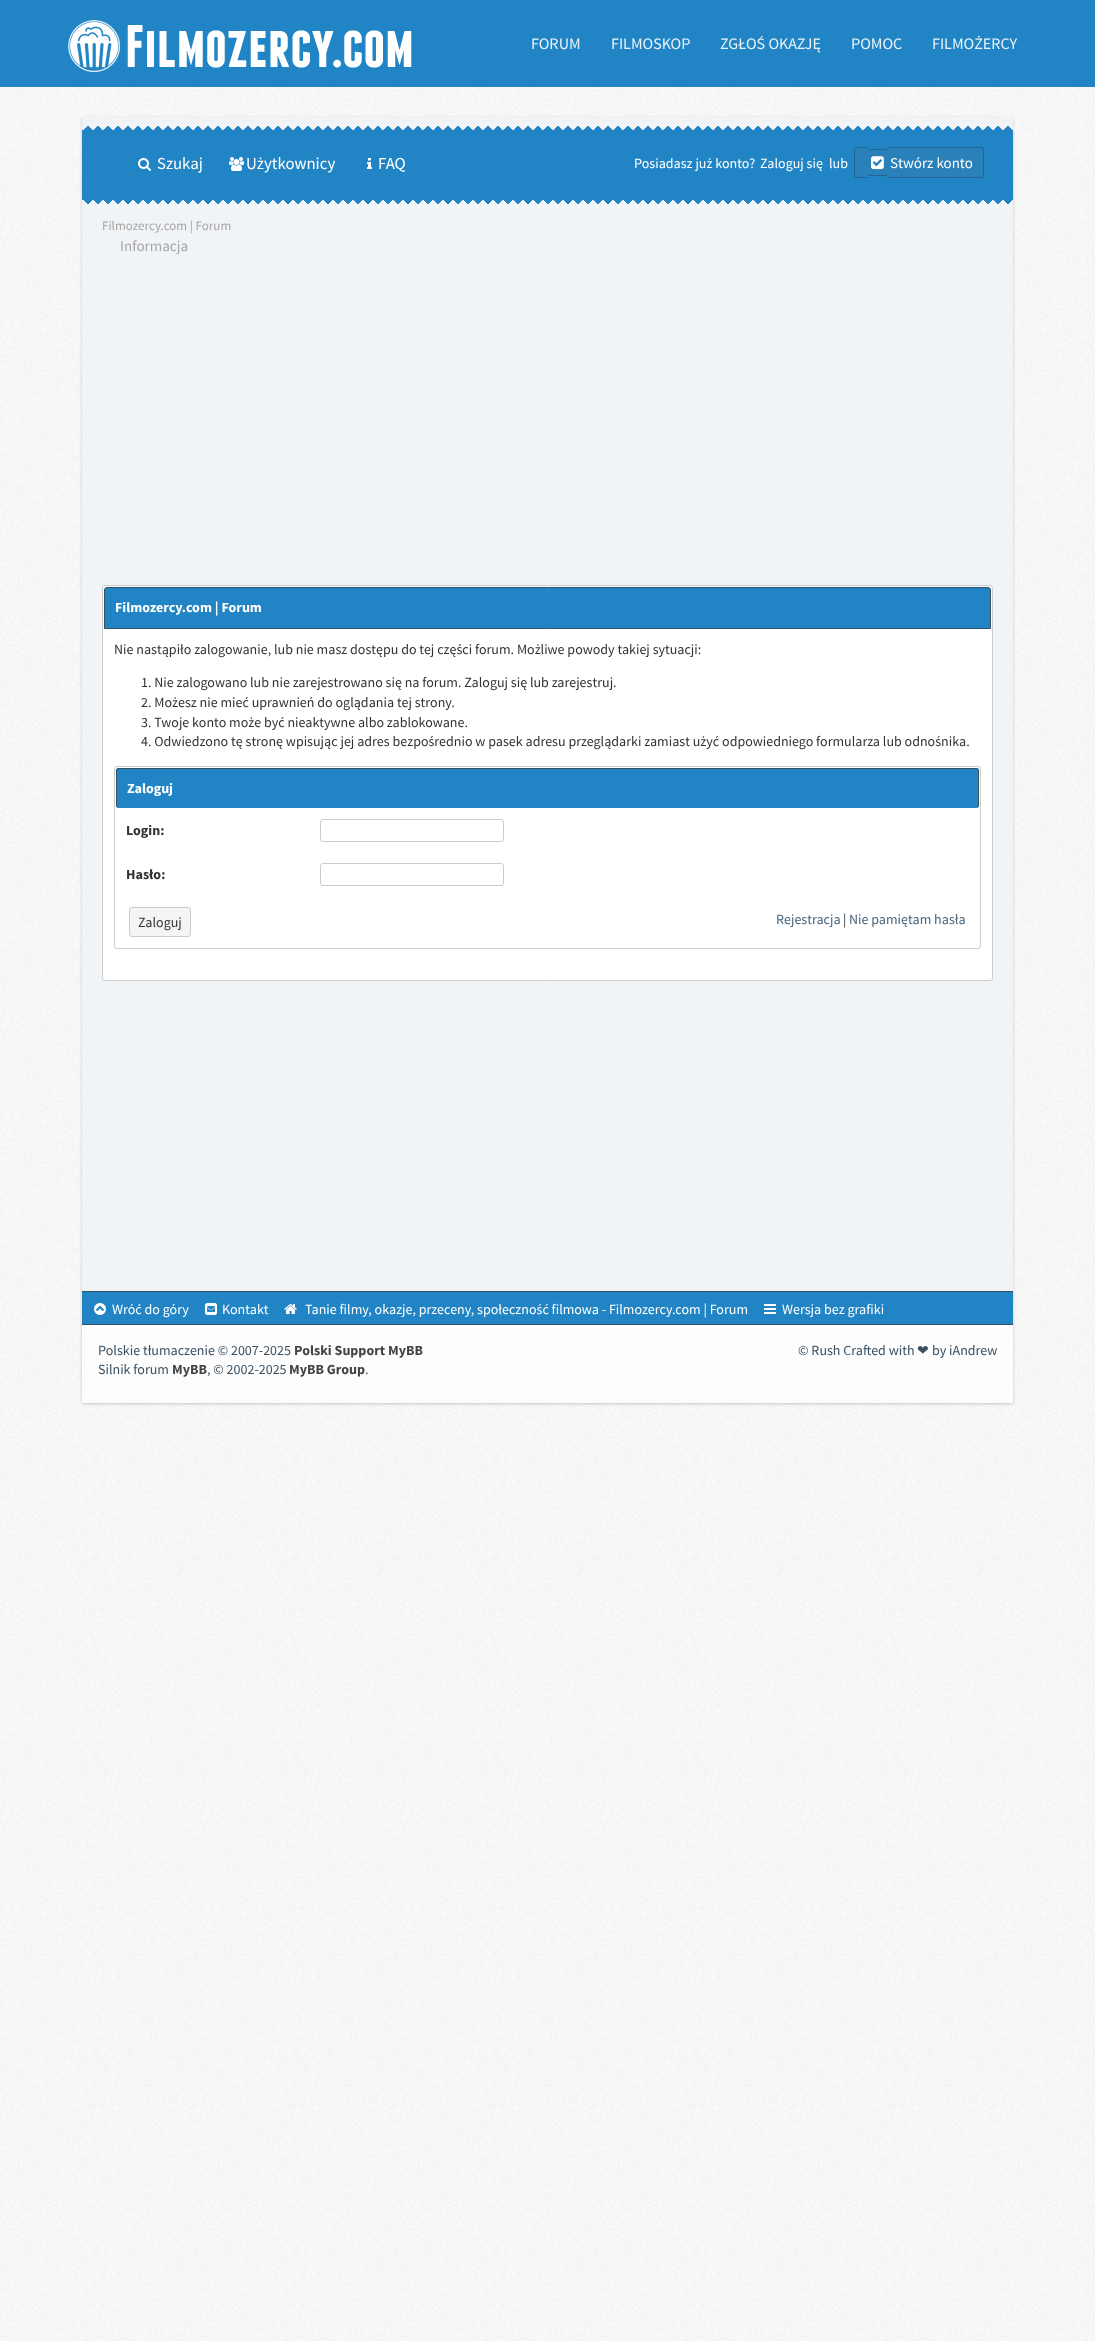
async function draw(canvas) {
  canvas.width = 1095;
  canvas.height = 2341;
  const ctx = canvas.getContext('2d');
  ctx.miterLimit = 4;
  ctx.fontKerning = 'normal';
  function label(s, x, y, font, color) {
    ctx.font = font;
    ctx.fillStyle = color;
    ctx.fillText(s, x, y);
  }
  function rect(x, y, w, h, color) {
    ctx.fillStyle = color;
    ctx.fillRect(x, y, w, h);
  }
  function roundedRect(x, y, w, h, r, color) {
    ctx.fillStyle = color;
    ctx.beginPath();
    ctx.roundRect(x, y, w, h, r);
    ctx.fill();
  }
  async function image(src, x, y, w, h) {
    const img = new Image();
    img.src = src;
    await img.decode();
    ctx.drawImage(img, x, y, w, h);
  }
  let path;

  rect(0, 0, 1095, 2341, '#fff');
  await image('assets/img1.png', 0, 87, 1095, 2254);
  rect(0, 0, 1095, 87, '#2185c5');
  await image('assets/img2.png', 68, 20, 344, 52);
  label('FORUM', 531, 49, '16px Source Sans Pro', '#e9f3f9');
  label('FILMOSKOP', 611, 49, '16px Source Sans Pro', '#e9f3f9');
  label('ZGŁOŚ OKAZJĘ', 720, 49, '16px Source Sans Pro', '#e9f3f9');
  label('POMOC', 851, 49, '16px Source Sans Pro', '#e9f3f9');
  label('FILMOŻERCY', 932, 49, '16px Source Sans Pro', '#e9f3f9');
  ctx.fillStyle = '#00000033';
  ctx.filter = 'blur(1.5px)';
  ctx.beginPath();
  ctx.rect(82, 118, 931, 1286);
  ctx.fill();
  ctx.filter = 'none';
  rect(82, 1325, 931, 78, '#fdfdfd');
  rect(82, 117, 931, 1174, '#f1f4f6');
  await image('assets/img3.png', 82, 126, 931, 78);
  await image('assets/img4.png', 138, 158, 13, 13);
  label('Szukaj', 157, 169, '16.75px Source Sans Pro', '#fff');
  await image('assets/img5.png', 229, 157, 15, 14);
  label('Użytkownicy', 246, 169, '16.75px Source Sans Pro', '#fff');
  await image('assets/img6.png', 367, 158, 5, 11);
  label('FAQ', 378, 169, '16.75px Source Sans Pro', '#fff');
  label('Posiadasz już konto?', 634, 168, '14px Source Sans Pro', '#fff');
  label('Zaloguj się', 760, 168, '14px Source Sans Pro', '#fff');
  label('lub', 829, 168, '14px Source Sans Pro', '#fff');
  ctx.fillStyle = '#2a80b9';
  ctx.beginPath();
  ctx.roundRect(855, 148, 13, 29, [2, 0, 0, 2]);
  ctx.fill();
  ctx.fillStyle = '#1f6696';
  path = new Path2D('M857 147H868V178H857C855.5 178 854 176.5 854 175V150C854 148.5 855.5 147 857 147ZM857 148H868V177H857C856 177 855 176 855 175V150C855 149 856 148 857 148Z');
  ctx.fill(path, 'evenodd');
  rect(868, 150, 19, 25, '#2a80b9');
  rect(868, 149, 19, 1, '#1f6696');
  rect(868, 175, 19, 1, '#1f6696');
  ctx.fillStyle = '#2a80b9';
  ctx.beginPath();
  ctx.roundRect(887, 148, 96, 29, [0, 2, 2, 0]);
  ctx.fill();
  ctx.fillStyle = '#1f6696';
  path = new Path2D('M887 147H981C983 147 984 148 984 150V175C984 177 983 178 981 178H887ZM887 148H981C982 148 983 149 983 150V175C983 176 982 177 981 177H887Z');
  ctx.fill(path, 'evenodd');
  await image('assets/img7.png', 871, 156, 13, 14);
  label('Stwórz konto', 890, 168, '15px Source Sans Pro', '#fff');
  label('Filmozercy.com | Forum', 102, 230, '13px Source Sans Pro', '#a6a3a3');
  label('Informacja', 120, 251, '15px Source Sans Pro', '#a6a3a3');
  ctx.fillStyle = '#fff';
  ctx.beginPath();
  ctx.roundRect(102.5, 585.5, 890, 395, 2.5);
  ctx.fill();
  ctx.strokeStyle = '#ccc';
  ctx.stroke();
  ctx.fillStyle = '#2185c5';
  ctx.beginPath();
  ctx.roundRect(104.5, 587.5, 886, 41, [2.5, 2.5, 0, 0]);
  ctx.fill();
  ctx.strokeStyle = '#395063';
  ctx.stroke();
  label('Filmozercy.com | Forum', 115, 612, 'bold 14px Source Sans Pro', '#fff');
  label('Nie nastąpiło zalogowanie, lub nie masz dostępu do tej części forum. Możliwe powody takiej sytuacji:', 114, 654, '14px Source Sans Pro', '#333');
  label('1. Nie zalogowano lub nie zarejestrowano się na forum. Zaloguj się lub zarejestruj.', 141, 687, '14px Source Sans Pro', '#333');
  label('2. Możesz nie mieć uprawnień do oglądania tej strony.', 141, 707, '14px Source Sans Pro', '#333');
  label('3. Twoje konto może być nieaktywne albo zablokowane.', 141, 727, '14px Source Sans Pro', '#333');
  label('4. Odwiedzono tę stronę wpisując jej adres bezpośrednio w pasek adresu przeglądarki zamiast użyć odpowiedniego formularza lub odnośnika.', 141, 746, '14px Source Sans Pro', '#333');
  ctx.beginPath();
  ctx.roundRect(114.5, 766.5, 866, 182, 2.5);
  ctx.strokeStyle = '#ccc';
  ctx.stroke();
  roundedRect(116, 768, 863, 40, 3, '#2185c5');
  ctx.fillStyle = '#395063';
  path = new Path2D('M119 768H976C978 768 979 769 979 771V805C979 807 978 808 976 808H119C117 808 116 807 116 805V771C116 769 117 768 119 768ZM119 769H976C977 769 978 770 978 771V805C978 807 977 808 976 808H119C118 808 117 807 117 805V771C117 770 118 769 119 769Z');
  ctx.fill(path, 'evenodd');
  label('Zaloguj', 127, 793, 'bold 14px Source Sans Pro', '#fff');
  label('Login:', 126, 835, 'bold 14px Source Sans Pro', '#333');
  ctx.beginPath();
  ctx.roundRect(320.5, 819.5, 183, 22, 2.5);
  ctx.stroke();
  label('Hasło:', 126, 879, 'bold 14px Source Sans Pro', '#333');
  ctx.beginPath();
  ctx.roundRect(320.5, 863.5, 183, 22, 2.5);
  ctx.stroke();
  ctx.fillStyle = '#f5f5f5';
  ctx.beginPath();
  ctx.roundRect(129.5, 907.5, 61, 29, 2.5);
  ctx.fill();
  ctx.stroke();
  label('Zaloguj', 138, 927, '14px Source Sans Pro', '#333');
  label('Rejestracja', 776, 924, '14px Source Sans Pro', '#49657d');
  label('|', 843, 924, '14px Source Sans Pro', '#333');
  label('Nie pamiętam hasła', 849, 924, '14px Source Sans Pro', '#49657d');
  rect(82, 1292, 931, 32, '#2185c5');
  rect(82, 1291, 931, 1, '#395063');
  rect(82, 1324, 931, 1, '#395063');
  await image('assets/img8.png', 94, 1303, 12, 12);
  label('Wróć do góry', 112, 1314, '14px Source Sans Pro', '#fff');
  await image('assets/img9.png', 205, 1303, 12, 12);
  label('Kontakt', 222, 1314, '14px Source Sans Pro', '#fff');
  await image('assets/img10.png', 284, 1304, 13, 10);
  label('Tanie filmy, okazje, przeceny, społeczność filmowa - Filmozercy.com | Forum', 305, 1314, '14px Source Sans Pro', '#fff');
  await image('assets/img11.png', 764, 1304, 12, 10);
  label('Wersja bez grafiki', 782, 1314, '14px Source Sans Pro', '#fff');
  label('Polskie tłumaczenie © 2007-2025', 98, 1355, '14px Source Sans Pro', '#395063');
  label('Polski Support MyBB', 294, 1355, 'bold 14px Source Sans Pro', '#444');
  label('Silnik forum', 98, 1374, '14px Source Sans Pro', '#395063');
  label('MyBB', 172, 1374, 'bold 14px Source Sans Pro', '#444');
  label(', © 2002-2025', 207, 1374, '14px Source Sans Pro', '#395063');
  label('MyBB Group', 289, 1374, 'bold 14px Source Sans Pro', '#444');
  label('.', 365, 1374, '14px Source Sans Pro', '#395063');
  label('© Rush Crafted with', 798, 1355, '14px Source Sans Pro', '#395063');
  label('❤', 917, 1355, '14px DejaVu Sans', '#395063');
  label('by iAndrew', 932, 1355, '14px Source Sans Pro', '#395063');
}

draw(document.querySelector('canvas'));
